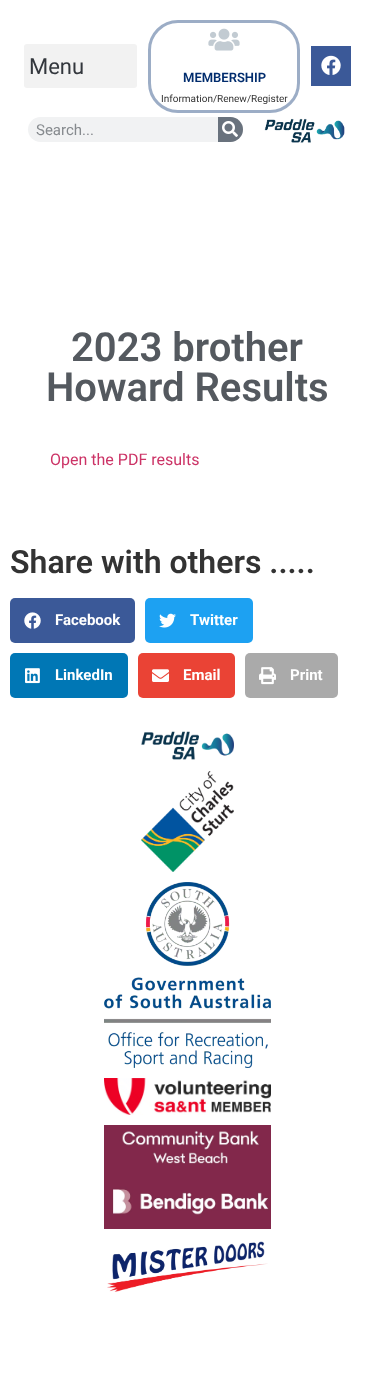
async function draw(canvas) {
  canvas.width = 375;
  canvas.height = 1386;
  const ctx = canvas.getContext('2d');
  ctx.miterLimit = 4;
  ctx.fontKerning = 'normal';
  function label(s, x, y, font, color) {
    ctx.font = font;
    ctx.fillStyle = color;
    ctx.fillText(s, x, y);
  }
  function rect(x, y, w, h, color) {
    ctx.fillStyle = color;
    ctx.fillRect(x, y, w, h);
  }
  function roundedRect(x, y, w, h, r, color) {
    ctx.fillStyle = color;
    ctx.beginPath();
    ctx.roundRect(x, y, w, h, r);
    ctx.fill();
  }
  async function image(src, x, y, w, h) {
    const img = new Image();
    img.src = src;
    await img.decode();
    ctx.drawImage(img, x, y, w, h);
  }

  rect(0, 0, 375, 1386, '#fff');
  roundedRect(24, 44, 113, 44, 3, '#f2f2f2');
  label('Menu', 29, 74, '22px Roboto', '#33373d');
  rect(311, 46, 40, 40, '#3b5998');
  await image('assets/img1.png', 321, 55, 20, 20);
  ctx.beginPath();
  ctx.roundRect(149.5, 21.5, 149, 90, 28.5);
  ctx.strokeStyle = '#9cadc6';
  ctx.lineWidth = 3;
  ctx.stroke();
  await image('assets/img2.png', 208, 28, 32, 23);
  label('MEMBERSHIP', 183, 82, '600 13px Roboto', '#012c6d');
  label('Information/Renew/Register', 161, 102, '10px Roboto', '#333');
  roundedRect(28, 117, 215, 25, 12.5, '#f1f2f3');
  label('Search...', 36, 135, '15px Roboto', '#868a8e');
  ctx.fillStyle = '#69727d';
  ctx.beginPath();
  ctx.roundRect(218, 117, 25, 25, [0, 12.5, 12.5, 0]);
  ctx.fill();
  await image('assets/img3.png', 222, 121, 16, 16);
  await image('assets/img4.png', 264, 118, 81, 25);
  label('2023 brother', 71, 361, '600 40px Roboto', '#54595f');
  label('Howard Results', 46, 401, '600 40px Roboto', '#54595f');
  label('Open the PDF results', 50, 465, '16px Roboto', '#c36');
  label('Share with others .....', 10, 573, '600 32px Roboto', '#333');
  roundedRect(10, 598, 125, 45, 5, '#3b5998');
  await image('assets/img5.png', 24, 612, 17, 17);
  label('Facebook', 55, 625, 'bold 15px Roboto', '#fff');
  roundedRect(145, 598, 108, 45, 5, '#1da1f2');
  await image('assets/img6.png', 159, 613, 17, 15);
  label('Twitter', 190, 625, 'bold 15px Roboto', '#fff');
  roundedRect(10, 653, 118, 45, 5, '#0077b5');
  await image('assets/img7.png', 25, 668, 15, 16);
  label('LinkedIn', 55, 680, 'bold 15px Roboto', '#fff');
  roundedRect(138, 653, 97, 45, 5, '#ea4335');
  await image('assets/img8.png', 152, 669, 17, 13);
  label('Email', 183, 680, 'bold 15px Roboto', '#fff');
  roundedRect(245, 653, 93, 45, 5, '#aaa');
  await image('assets/img9.png', 259, 667, 17, 18);
  label('Print', 290, 680, 'bold 15px Roboto', '#fff');
  await image('assets/img10.png', 141, 731, 93, 29);
  await image('assets/img11.png', 141, 771, 93, 101);
  await image('assets/img12.png', 104, 882, 167, 186);
  await image('assets/img13.png', 104, 1078, 167, 37);
  await image('assets/img14.png', 104, 1125, 167, 104);
  await image('assets/img15.png', 107, 1241, 161, 51);
}

draw(document.querySelector('canvas'));
